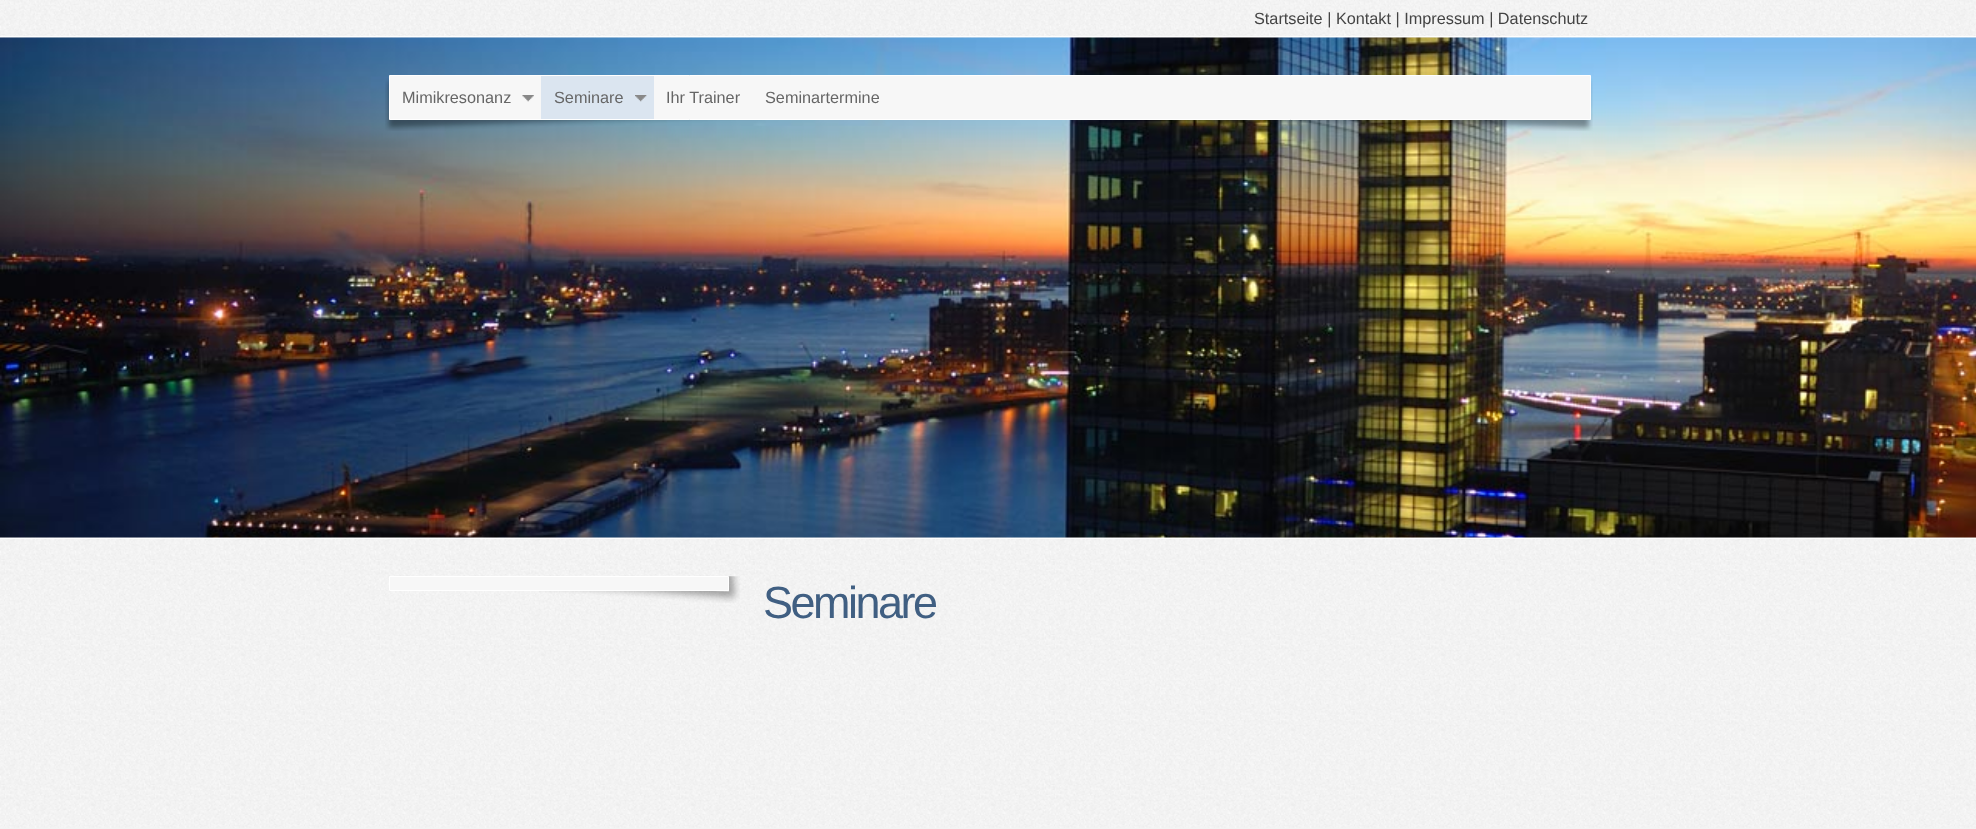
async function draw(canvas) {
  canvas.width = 1976;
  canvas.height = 829;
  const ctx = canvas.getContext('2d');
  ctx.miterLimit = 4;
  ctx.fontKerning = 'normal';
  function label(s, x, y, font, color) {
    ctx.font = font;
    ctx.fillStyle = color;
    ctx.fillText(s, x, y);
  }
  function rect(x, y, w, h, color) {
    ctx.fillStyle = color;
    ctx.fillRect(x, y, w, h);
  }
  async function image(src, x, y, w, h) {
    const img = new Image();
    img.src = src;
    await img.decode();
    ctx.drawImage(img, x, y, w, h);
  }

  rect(0, 0, 1976, 829, '#f3f3f3');
  await image('assets/img1.png', 0, 0, 1976, 828);
  label('Startseite | Kontakt | Impressum | Datenschutz', 1254, 24, '16.25px Liberation Sans', '#444');
  rect(0, 36, 1976, 1, '#fff');
  rect(0, 538, 1976, 1, '#fff');
  await image('assets/img2.png', 0, 37, 1976, 501);
  await image('assets/img3.png', 385, 78, 1208, 53);
  ctx.fillStyle = '#f7f7f7';
  ctx.beginPath();
  ctx.rect(389.5, 75.5, 1201, 44);
  ctx.fill();
  ctx.strokeStyle = '#fff';
  ctx.stroke();
  await image('assets/img4.png', 522, 95, 12, 7);
  label('Mimikresonanz', 402, 103, '16.25px Liberation Sans', '#666');
  rect(541, 76, 113, 43, '#dbe5f0');
  await image('assets/img5.png', 635, 95, 12, 7);
  label('Seminare', 554, 103, '16.25px Liberation Sans', '#666');
  label('Ihr Trainer', 666, 103, '16.25px Liberation Sans', '#666');
  label('Seminartermine', 765, 103, '16.25px Liberation Sans', '#666');
  await image('assets/img6.png', 539, 576, 201, 27);
  ctx.fillStyle = '#f7f7f7';
  ctx.beginPath();
  ctx.rect(389.5, 576.5, 339, 14);
  ctx.fill();
  ctx.stroke();
  ctx.letterSpacing = '-2.5px';
  label('Seminare', 763, 618, '45px Liberation Sans', '#405f82');
}

draw(document.querySelector('canvas'));
